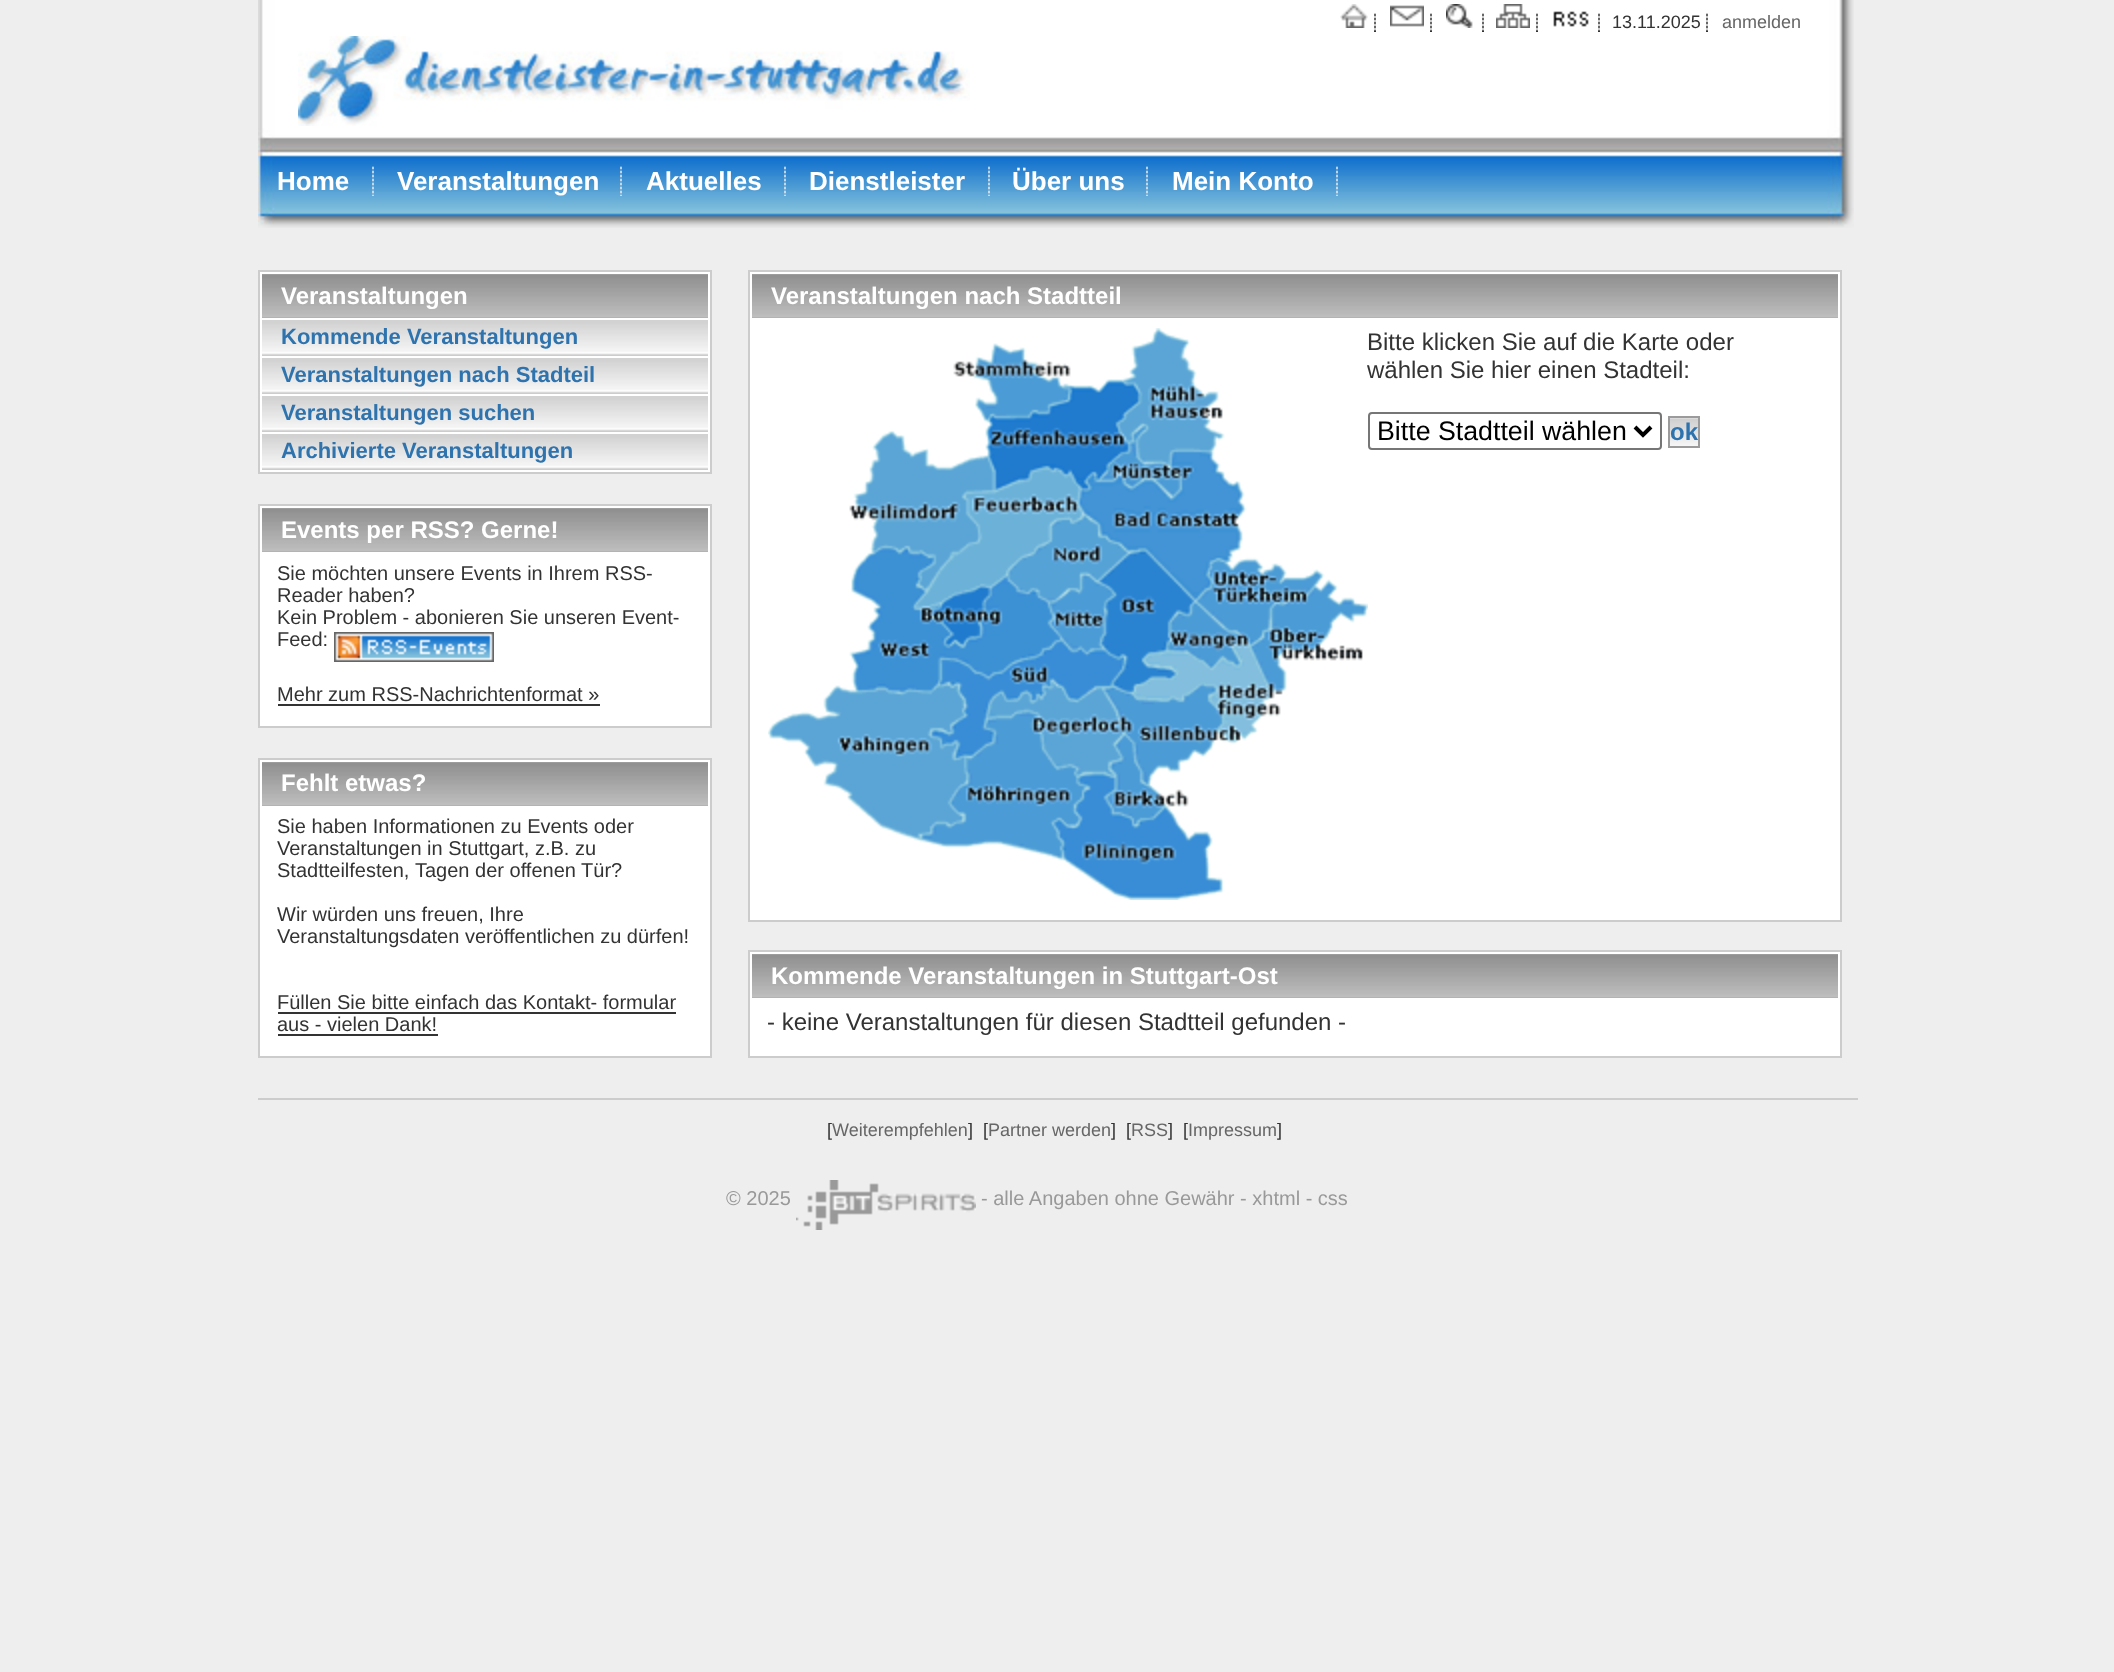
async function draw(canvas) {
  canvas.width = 2114;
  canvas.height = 1672;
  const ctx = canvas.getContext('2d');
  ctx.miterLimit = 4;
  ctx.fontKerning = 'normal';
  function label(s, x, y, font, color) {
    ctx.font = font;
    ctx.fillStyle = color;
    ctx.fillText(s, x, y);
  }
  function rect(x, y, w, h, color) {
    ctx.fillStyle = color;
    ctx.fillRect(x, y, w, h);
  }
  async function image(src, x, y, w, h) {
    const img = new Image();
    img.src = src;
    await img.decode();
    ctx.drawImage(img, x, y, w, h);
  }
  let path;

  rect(0, 0, 2114, 1672, '#eee');
  await image('assets/img1.png', 258, 0, 1596, 228);
  await image('assets/img2.png', 1340, 4, 28, 24);
  await image('assets/img3.png', 1374, 13, 2, 19);
  await image('assets/img4.png', 1390, 5, 34, 22);
  await image('assets/img3.png', 1430, 13, 2, 19);
  await image('assets/img5.png', 1446, 4, 27, 24);
  await image('assets/img3.png', 1482, 13, 2, 19);
  await image('assets/img6.png', 1496, 4, 34, 24);
  await image('assets/img3.png', 1536, 13, 2, 19);
  await image('assets/img7.png', 1553, 11, 36, 16);
  await image('assets/img3.png', 1598, 13, 2, 19);
  label('13.11.2025', 1612, 28, '18px Liberation Sans', '#333');
  await image('assets/img3.png', 1706, 13, 2, 19);
  label('anmelden', 1722, 28, '18px Liberation Sans', '#666');
  await image('assets/img8.png', 298, 36, 672, 90);
  label('Home', 277, 190, 'bold 26px Liberation Sans', '#fff');
  await image('assets/img9.png', 372, 166, 2, 30);
  label('Veranstaltungen', 397, 190, 'bold 26px Liberation Sans', '#fff');
  await image('assets/img9.png', 620, 166, 2, 30);
  label('Aktuelles', 646, 190, 'bold 26px Liberation Sans', '#fff');
  await image('assets/img9.png', 784, 166, 2, 30);
  label('Dienstleister', 809, 190, 'bold 26px Liberation Sans', '#fff');
  await image('assets/img9.png', 988, 166, 2, 30);
  label('Über uns', 1012, 190, 'bold 26px Liberation Sans', '#fff');
  await image('assets/img9.png', 1146, 166, 2, 30);
  label('Mein Konto', 1172, 190, 'bold 26px Liberation Sans', '#fff');
  await image('assets/img9.png', 1336, 166, 2, 30);
  rect(260, 320, 450, 152, '#fff');
  ctx.strokeStyle = '#ccc';
  ctx.lineWidth = 2;
  ctx.strokeRect(259, 271, 452, 202);
  await image('assets/img10.png', 262, 274, 446, 44);
  ctx.strokeStyle = '#fff';
  ctx.strokeRect(261, 273, 448, 46);
  label('Veranstaltungen', 281, 304, 'bold 24px Liberation Sans', '#fff');
  await image('assets/img11.png', 262, 320, 446, 36);
  label('Kommende Veranstaltungen', 281, 344, 'bold 22px Liberation Sans', '#2e73ae');
  await image('assets/img11.png', 262, 358, 446, 36);
  label('Veranstaltungen nach Stadteil', 281, 382, 'bold 22px Liberation Sans', '#2e73ae');
  await image('assets/img11.png', 262, 396, 446, 36);
  label('Veranstaltungen suchen', 281, 420, 'bold 22px Liberation Sans', '#2e73ae');
  await image('assets/img11.png', 262, 434, 446, 36);
  label('Archivierte Veranstaltungen', 281, 458, 'bold 22px Liberation Sans', '#2e73ae');
  rect(260, 554, 450, 172, '#fff');
  ctx.strokeStyle = '#ccc';
  ctx.strokeRect(259, 505, 452, 222);
  await image('assets/img10.png', 262, 508, 446, 44);
  ctx.strokeStyle = '#fff';
  ctx.strokeRect(261, 507, 448, 46);
  label('Events per RSS? Gerne!', 281, 538, 'bold 24px Liberation Sans', '#fff');
  label('Sie möchten unsere Events in Ihrem RSS-', 277, 580, '20px Liberation Sans', '#333');
  label('Reader haben?', 277, 602, '20px Liberation Sans', '#333');
  label('Kein Problem - abonieren Sie unseren Event-', 277, 624, '20px Liberation Sans', '#333');
  label('Feed:', 277, 646, '20px Liberation Sans', '#333');
  await image('assets/img12.png', 334, 632, 160, 30);
  label('Mehr zum RSS-Nachrichtenformat »', 277, 701, '20px Liberation Sans', '#333');
  rect(278, 704, 322, 2, '#333');
  rect(260, 808, 450, 248, '#fff');
  ctx.strokeStyle = '#ccc';
  ctx.strokeRect(259, 759, 452, 298);
  await image('assets/img10.png', 262, 762, 446, 44);
  ctx.strokeStyle = '#fff';
  ctx.strokeRect(261, 761, 448, 46);
  label('Fehlt etwas?', 281, 791, 'bold 24px Liberation Sans', '#fff');
  label('Sie haben Informationen zu Events oder', 277, 833, '20px Liberation Sans', '#333');
  label('Veranstaltungen in Stuttgart, z.B. zu', 277, 855, '20px Liberation Sans', '#333');
  label('Stadtteilfesten,', 277, 877, '20px Liberation Sans', '#333');
  label('Tagen der offenen Tür?', 415, 877, '20px Liberation Sans', '#333');
  label('Wir würden uns freuen, Ihre', 277, 921, '20px Liberation Sans', '#333');
  label('Veranstaltungsdaten veröffentlichen zu dürfen!', 277, 943, '20px Liberation Sans', '#333');
  label('Füllen Sie bitte einfach das Kontakt- formular', 277, 1009, '20px Liberation Sans', '#333');
  rect(278, 1012, 398, 2, '#333');
  label('aus - vielen Dank!', 277, 1031, '20px Liberation Sans', '#333');
  rect(278, 1034, 160, 2, '#333');
  rect(750, 320, 1090, 600, '#fff');
  ctx.strokeStyle = '#ccc';
  ctx.strokeRect(749, 271, 1092, 650);
  await image('assets/img13.png', 752, 274, 1086, 44);
  ctx.strokeStyle = '#fff';
  ctx.strokeRect(751, 273, 1088, 46);
  label('Veranstaltungen nach Stadtteil', 771, 304, 'bold 24px Liberation Sans', '#fff');
  await image('assets/img14.png', 768, 328, 600, 572);
  label('Bitte klicken Sie auf die Karte oder', 1367, 350, '24px Liberation Sans', '#333');
  label('wählen Sie hier einen Stadteil:', 1367, 378, '24px Liberation Sans', '#333');
  ctx.beginPath();
  ctx.roundRect(1369, 413, 292, 36, 3);
  ctx.strokeStyle = '#767676';
  ctx.stroke();
  path = new Path2D('M1635 427L1643 435L1651 427');
  ctx.strokeStyle = '#000';
  ctx.lineWidth = 4;
  ctx.stroke(path);
  label('Bitte Stadtteil wählen', 1377, 440, '26.75px Liberation Sans', '#000');
  await image('assets/img15.png', 1670, 418, 28, 28);
  ctx.strokeStyle = '#9b9b9b';
  ctx.lineWidth = 2;
  ctx.strokeRect(1669, 417, 30, 30);
  label('ok', 1670, 440, 'bold 24px Liberation Sans', '#2e73ae');
  rect(750, 1000, 1090, 56, '#fff');
  ctx.strokeStyle = '#ccc';
  ctx.strokeRect(749, 951, 1092, 106);
  await image('assets/img13.png', 752, 954, 1086, 44);
  ctx.strokeStyle = '#fff';
  ctx.strokeRect(751, 953, 1088, 46);
  label('Kommende Veranstaltungen in Stuttgart-Ost', 771, 984, 'bold 24px Liberation Sans', '#fff');
  label('- keine Veranstaltungen für diesen Stadtteil gefunden -', 767, 1030, '24px Liberation Sans', '#333');
  rect(258, 1098, 1600, 2, '#ccc');
  label('[', 827, 1136, '18px Liberation Sans', '#333');
  label('Weiterempfehlen', 832, 1136, '18px Liberation Sans', '#666');
  label(']', 968, 1136, '18px Liberation Sans', '#333');
  label('[', 983, 1136, '18px Liberation Sans', '#333');
  label('Partner werden', 988, 1136, '18px Liberation Sans', '#666');
  label(']', 1111, 1136, '18px Liberation Sans', '#333');
  label('[', 1126, 1136, '18px Liberation Sans', '#333');
  label('RSS', 1131, 1136, '18px Liberation Sans', '#666');
  label(']', 1168, 1136, '18px Liberation Sans', '#333');
  label('[', 1183, 1136, '18px Liberation Sans', '#333');
  label('Impressum', 1188, 1136, '18px Liberation Sans', '#666');
  label(']', 1277, 1136, '18px Liberation Sans', '#333');
  label('© 2025', 726, 1205, '20px Liberation Sans', '#999');
  await image('assets/img16.png', 796, 1180, 180, 50);
  label('- alle Angaben ohne Gewähr - xhtml - css', 981, 1205, '20px Liberation Sans', '#999');
}

draw(document.querySelector('canvas'));
